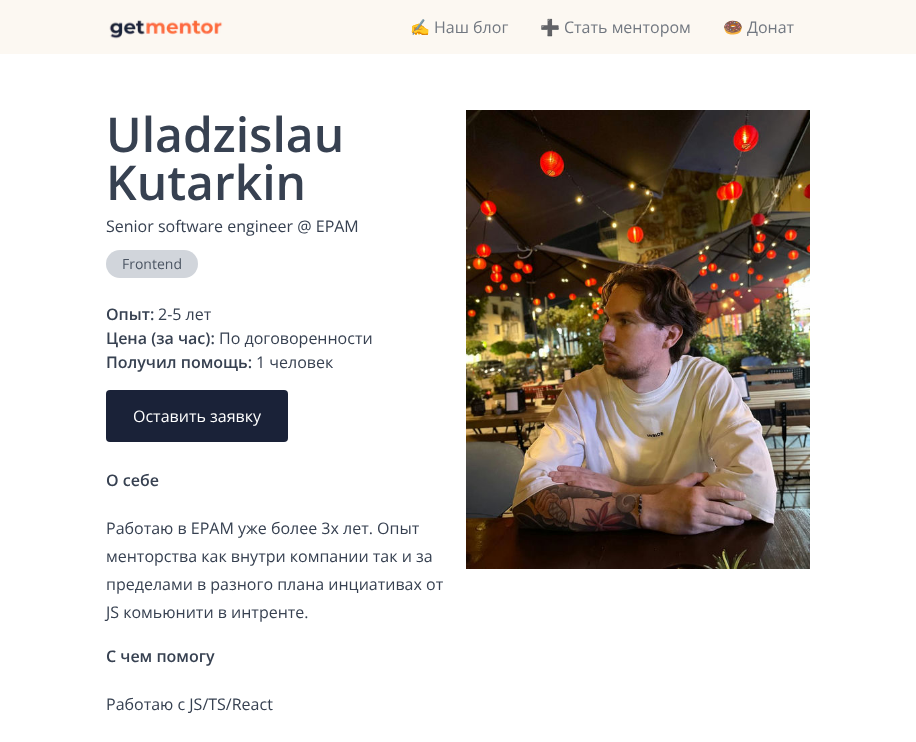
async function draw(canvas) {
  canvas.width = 916;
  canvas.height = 742;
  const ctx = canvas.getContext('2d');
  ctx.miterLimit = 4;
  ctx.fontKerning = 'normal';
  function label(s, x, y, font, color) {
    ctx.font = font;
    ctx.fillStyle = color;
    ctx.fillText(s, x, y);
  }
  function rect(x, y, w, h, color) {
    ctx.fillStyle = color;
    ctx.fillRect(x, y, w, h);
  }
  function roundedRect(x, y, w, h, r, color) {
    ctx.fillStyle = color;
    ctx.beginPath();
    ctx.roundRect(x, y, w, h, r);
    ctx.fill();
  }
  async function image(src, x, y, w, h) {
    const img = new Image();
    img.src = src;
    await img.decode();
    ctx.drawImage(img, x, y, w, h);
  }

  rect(0, 0, 916, 742, '#fff');
  rect(0, 0, 916, 54, '#fcf8f2');
  await image('assets/img1.png', 109, 20, 114, 19);
  label('✍️', 410, 33, '16px Noto Color Emoji', '#727881');
  label('Наш блог', 434, 33, '16px Open Sans', '#727881');
  label('➕', 540, 33, '16px Noto Color Emoji', '#727881');
  label('Стать ментором', 564, 33, '16px Open Sans', '#727881');
  label('🍩', 723, 33, '16px Noto Color Emoji', '#727881');
  label('Донат', 747, 33, '16px Open Sans', '#727881');
  label('Uladzislau', 106, 152, '600 48px Open Sans', '#374151');
  label('Kutarkin', 106, 200, '600 48px Open Sans', '#374151');
  label('Senior software engineer @ EPAM', 106, 232, '16px Open Sans', '#374151');
  roundedRect(106, 250, 92, 28, 14, '#d1d5db');
  label('Frontend', 122, 269, '14px Open Sans', '#4b5563');
  label('Опыт:', 106, 320, '600 16px Open Sans', '#374151');
  label('2-5 лет', 158, 320, '16px Open Sans', '#374151');
  label('Цена (за час):', 106, 344, '600 16px Open Sans', '#374151');
  label('По договоренности', 219, 344, '16px Open Sans', '#374151');
  label('Получил помощь:', 106, 368, '600 16px Open Sans', '#374151');
  label('1 человек', 256, 368, '16px Open Sans', '#374151');
  roundedRect(106, 390, 182, 52, 4, '#1a2238');
  label('Оставить заявку', 133, 422, '16px Open Sans', '#fff');
  label('О себе', 106, 486, '600 16px Open Sans', '#374151');
  label('Работаю в EPAM уже более 3х лет. Опыт', 106, 534, '16px Open Sans', '#374151');
  label('менторства как внутри компании так и за', 106, 562, '16px Open Sans', '#374151');
  label('пределами в разного плана инциативах от', 106, 590, '16px Open Sans', '#374151');
  label('JS комьюнити в интренте.', 106, 618, '16px Open Sans', '#374151');
  label('С чем помогу', 106, 662, '600 16px Open Sans', '#374151');
  label('Работаю с JS/TS/React', 106, 710, '16px Open Sans', '#374151');
  await image('assets/img2.png', 466, 110, 344, 459);
}

draw(document.querySelector('canvas'));
